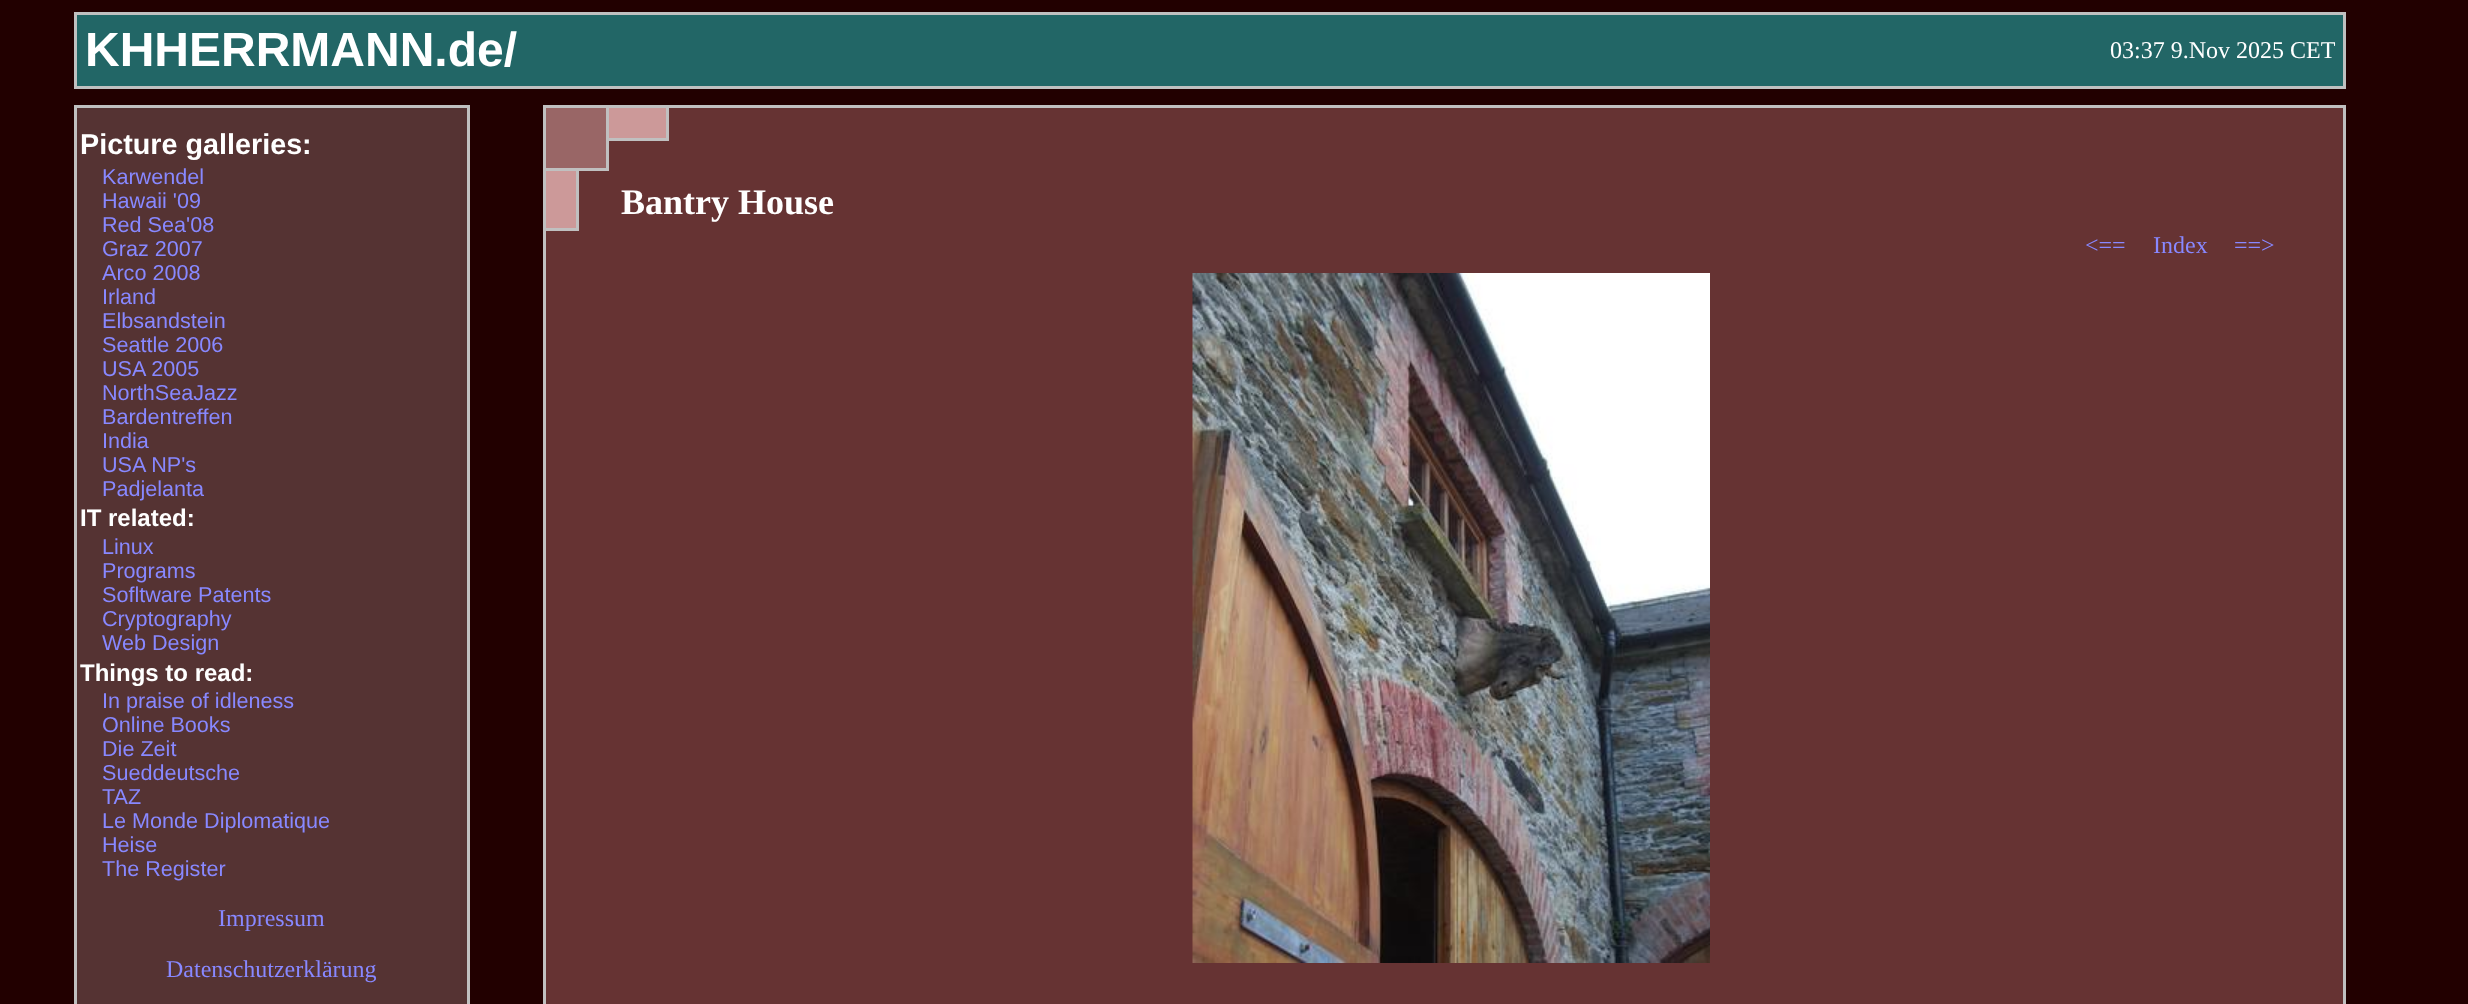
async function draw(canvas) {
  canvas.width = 2468;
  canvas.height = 1004;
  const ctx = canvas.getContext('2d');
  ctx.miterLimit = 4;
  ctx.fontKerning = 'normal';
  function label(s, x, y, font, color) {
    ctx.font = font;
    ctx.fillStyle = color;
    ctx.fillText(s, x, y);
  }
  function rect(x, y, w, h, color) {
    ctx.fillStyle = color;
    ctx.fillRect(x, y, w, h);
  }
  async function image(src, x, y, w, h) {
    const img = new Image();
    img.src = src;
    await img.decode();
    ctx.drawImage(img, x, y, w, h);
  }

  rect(0, 0, 2468, 1004, '#200');
  ctx.fillStyle = '#266';
  ctx.beginPath();
  ctx.rect(75.5, 13.5, 2269, 74);
  ctx.fill();
  ctx.strokeStyle = '#c0c0c0';
  ctx.lineWidth = 3;
  ctx.stroke();
  label('KHHERRMANN.de/', 85, 66, 'bold 48px Liberation Sans', '#fff');
  label('03:37 9.Nov 2025 CET', 2110, 58, '24px Liberation Serif', '#fff');
  ctx.fillStyle = '#633';
  ctx.beginPath();
  ctx.rect(544.5, 106.5, 1800, 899);
  ctx.fill();
  ctx.stroke();
  rect(609, 108, 57, 30, '#c99');
  ctx.strokeRect(544.5, 106.5, 123, 33);
  rect(546, 171, 30, 57, '#c99');
  ctx.strokeRect(544.5, 106.5, 33, 123);
  ctx.fillStyle = '#533';
  ctx.beginPath();
  ctx.rect(75.5, 106.5, 393, 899);
  ctx.fill();
  ctx.stroke();
  label('Picture galleries:', 80, 154, 'bold 28.75px Liberation Sans', '#fff');
  label('Karwendel', 102, 184, '21.6px Liberation Sans', '#88f');
  label('Hawaii \'09', 102, 208, '21.6px Liberation Sans', '#88f');
  label('Red Sea\'08', 102, 232, '21.6px Liberation Sans', '#88f');
  label('Graz 2007', 102, 256, '21.6px Liberation Sans', '#88f');
  label('Arco 2008', 102, 280, '21.6px Liberation Sans', '#88f');
  label('Irland', 102, 304, '21.6px Liberation Sans', '#88f');
  label('Elbsandstein', 102, 328, '21.6px Liberation Sans', '#88f');
  label('Seattle 2006', 102, 352, '21.6px Liberation Sans', '#88f');
  label('USA 2005', 102, 376, '21.6px Liberation Sans', '#88f');
  label('NorthSeaJazz', 102, 400, '21.6px Liberation Sans', '#88f');
  label('Bardentreffen', 102, 424, '21.6px Liberation Sans', '#88f');
  label('India', 102, 448, '21.6px Liberation Sans', '#88f');
  label('USA NP\'s', 102, 472, '21.6px Liberation Sans', '#88f');
  label('Padjelanta', 102, 496, '21.6px Liberation Sans', '#88f');
  label('IT related:', 80, 526, 'bold 24px Liberation Sans', '#fff');
  label('Linux', 102, 554, '21.6px Liberation Sans', '#88f');
  label('Programs', 102, 578, '21.6px Liberation Sans', '#88f');
  label('Sofltware Patents', 102, 602, '21.6px Liberation Sans', '#88f');
  label('Cryptography', 102, 626, '21.6px Liberation Sans', '#88f');
  label('Web Design', 102, 650, '21.6px Liberation Sans', '#88f');
  label('Things to read:', 80, 681, 'bold 24px Liberation Sans', '#fff');
  label('In praise of idleness', 102, 708, '21.6px Liberation Sans', '#88f');
  label('Online Books', 102, 732, '21.6px Liberation Sans', '#88f');
  label('Die Zeit', 102, 756, '21.6px Liberation Sans', '#88f');
  label('Sueddeutsche', 102, 780, '21.6px Liberation Sans', '#88f');
  label('TAZ', 102, 804, '21.6px Liberation Sans', '#88f');
  label('Le Monde Diplomatique', 102, 828, '21.6px Liberation Sans', '#88f');
  label('Heise', 102, 852, '21.6px Liberation Sans', '#88f');
  label('The Register', 102, 876, '21.6px Liberation Sans', '#88f');
  label('Impressum', 218, 926, '24px Liberation Serif', '#88f');
  label('Datenschutzerklärung', 166, 977, '24px Liberation Serif', '#88f');
  ctx.fillStyle = '#966';
  ctx.beginPath();
  ctx.rect(544.5, 106.5, 63, 63);
  ctx.fill();
  ctx.stroke();
  label('Bantry House', 621, 214, 'bold 36px Liberation Serif', '#fff');
  label('<==', 2085, 253, '24px Liberation Serif', '#88f');
  label('Index', 2153, 253, '24px Liberation Serif', '#88f');
  label('==>', 2234, 253, '24px Liberation Serif', '#88f');
  await image('assets/img1.png', 1192, 273, 518, 690);
}

draw(document.querySelector('canvas'));
